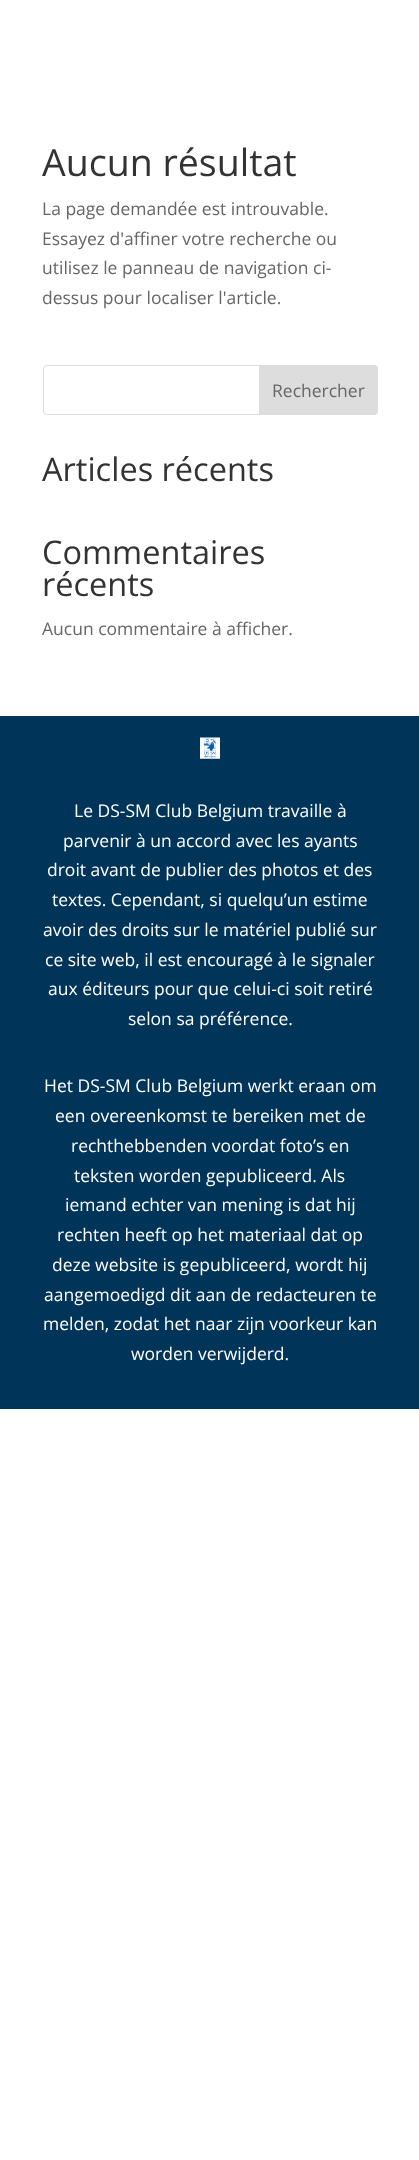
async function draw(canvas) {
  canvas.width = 419;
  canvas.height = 2160;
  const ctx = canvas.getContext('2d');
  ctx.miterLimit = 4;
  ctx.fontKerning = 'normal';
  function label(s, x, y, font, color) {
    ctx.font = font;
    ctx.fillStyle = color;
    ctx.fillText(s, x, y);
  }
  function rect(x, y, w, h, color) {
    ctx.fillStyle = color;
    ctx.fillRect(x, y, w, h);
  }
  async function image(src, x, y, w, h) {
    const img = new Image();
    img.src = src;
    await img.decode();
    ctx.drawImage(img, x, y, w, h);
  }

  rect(0, 0, 419, 2160, '#fff');
  label('Aucun résultat', 42, 176, '37.5px Open Sans', '#333');
  label('La page demandée est introuvable.', 42, 215, '17.5px Open Sans', '#666');
  label('Essayez d\'affiner votre recherche ou', 42, 245, '17.5px Open Sans', '#666');
  label('utilisez le panneau de navigation ci-', 42, 274, '17.5px Open Sans', '#666');
  label('dessus pour localiser l\'article.', 42, 304, '17.5px Open Sans', '#666');
  ctx.beginPath();
  ctx.roundRect(43.5, 365.5, 334, 49, 3.5);
  ctx.strokeStyle = '#ddd';
  ctx.stroke();
  ctx.fillStyle = '#ddd';
  ctx.beginPath();
  ctx.roundRect(259.5, 365.5, 118, 49, [0, 3.5, 3.5, 0]);
  ctx.fill();
  ctx.stroke();
  label('Rechercher', 272, 397, '17.5px Open Sans', '#666');
  label('Articles récents', 42, 481, '32.5px Open Sans', '#333');
  label('Commentaires', 42, 564, '32.5px Open Sans', '#333');
  label('récents', 42, 596, '32.5px Open Sans', '#333');
  label('Aucun commentaire à afficher.', 42, 635, '17.5px Open Sans', '#666');
  rect(0, 716, 419, 693, '#003459');
  await image('assets/img1.png', 200, 737, 20, 22);
  label('Le DS-SM Club Belgium travaille à', 74, 817, '17.5px Open Sans', '#fff');
  label('parvenir à un accord avec les ayants', 63, 847, '17.5px Open Sans', '#fff');
  label('droit avant de publier des photos et des', 47, 876, '17.5px Open Sans', '#fff');
  label('textes. Cependant, si quelqu’un estime', 52, 906, '17.5px Open Sans', '#fff');
  label('avoir des droits sur le matériel publié sur', 43, 936, '17.5px Open Sans', '#fff');
  label('ce site web, il est encouragé à le signaler', 45, 966, '17.5px Open Sans', '#fff');
  label('aux éditeurs pour que celui-ci soit retiré', 48, 995, '17.5px Open Sans', '#fff');
  label('selon sa préférence.', 128, 1025, '17.5px Open Sans', '#fff');
  label('Het DS-SM Club Belgium werkt eraan om', 44, 1092, '17.5px Open Sans', '#fff');
  label('een overeenkomst te bereiken met de', 55, 1122, '17.5px Open Sans', '#fff');
  label('rechthebbenden voordat foto’s en', 71, 1152, '17.5px Open Sans', '#fff');
  label('teksten worden gepubliceerd. Als', 74, 1182, '17.5px Open Sans', '#fff');
  label('iemand echter van mening is dat hij', 65, 1211, '17.5px Open Sans', '#fff');
  label('rechten heeft op het materiaal dat op', 57, 1241, '17.5px Open Sans', '#fff');
  label('deze website is gepubliceerd, wordt hij', 52, 1271, '17.5px Open Sans', '#fff');
  label('aangemoedigd dit aan de redacteuren te', 44, 1301, '17.5px Open Sans', '#fff');
  label('melden, zodat het naar zijn voorkeur kan', 43, 1330, '17.5px Open Sans', '#fff');
  label('worden verwijderd.', 131, 1360, '17.5px Open Sans', '#fff');
}

draw(document.querySelector('canvas'));
